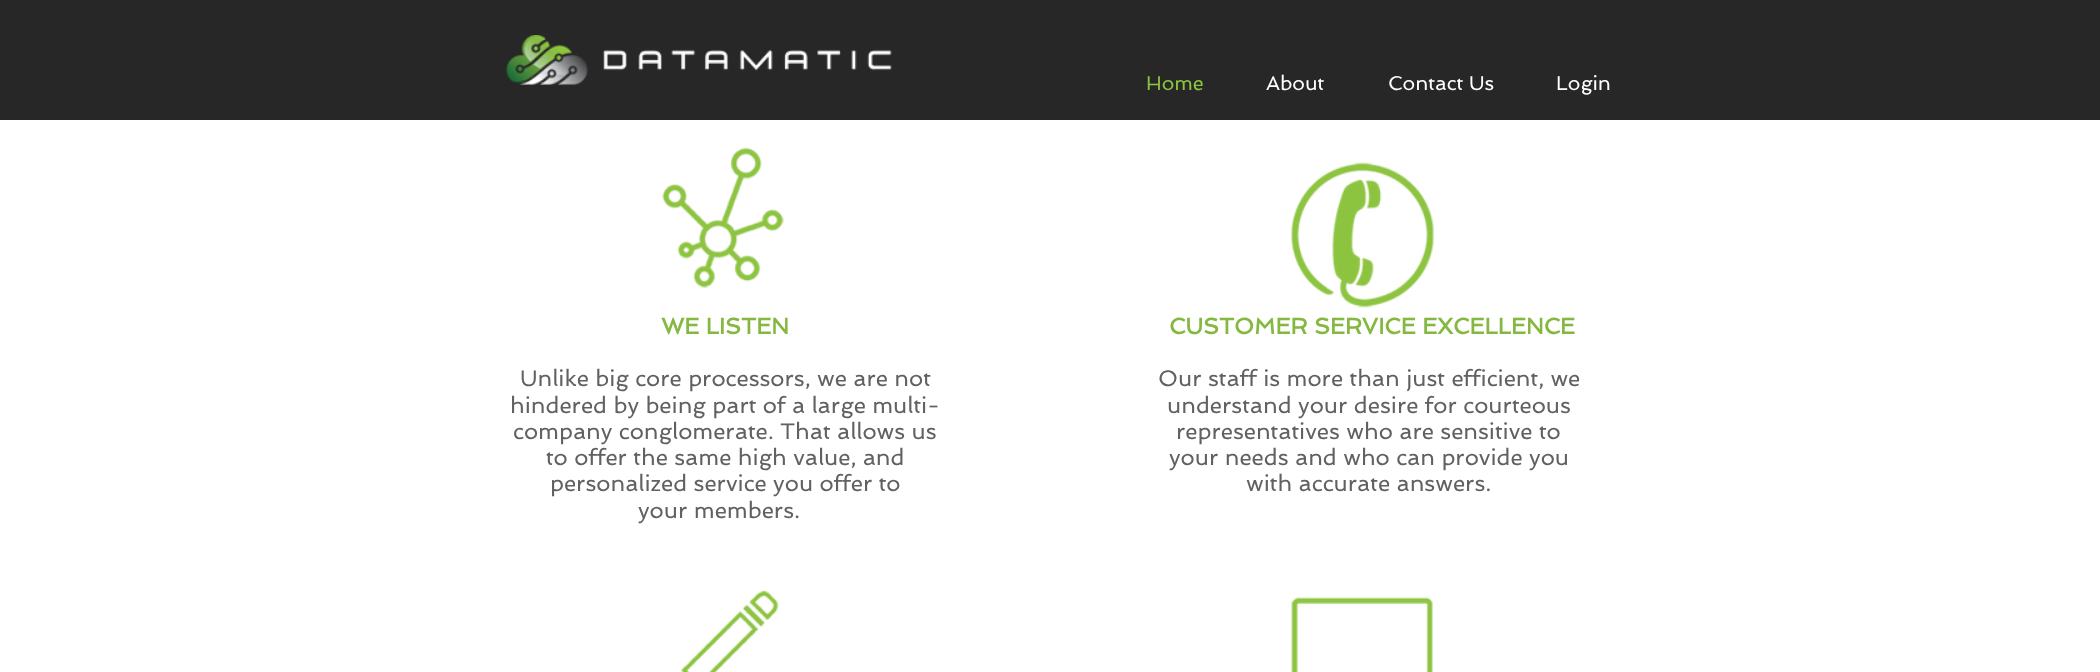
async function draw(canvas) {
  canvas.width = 2100;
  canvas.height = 672;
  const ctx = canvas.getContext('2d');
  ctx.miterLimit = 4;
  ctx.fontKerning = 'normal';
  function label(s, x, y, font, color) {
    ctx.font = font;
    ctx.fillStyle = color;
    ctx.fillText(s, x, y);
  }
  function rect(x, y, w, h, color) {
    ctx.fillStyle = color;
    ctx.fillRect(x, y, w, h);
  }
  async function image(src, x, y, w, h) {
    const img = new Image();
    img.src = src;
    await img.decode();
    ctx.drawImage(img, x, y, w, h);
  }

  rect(0, 0, 2100, 672, '#fff');
  rect(0, 0, 2100, 120, '#272727');
  await image('assets/img1.png', 506, 35, 386, 50);
  label('Home', 1146, 90, '20px Spinnaker', '#8cc43f');
  label('About', 1266, 90, '20px Spinnaker', '#fff');
  label('Contact Us', 1388, 90, '20px Spinnaker', '#fff');
  label('Login', 1556, 90, '20px Spinnaker', '#fff');
  await image('assets/img2.png', 662, 147, 122, 142);
  await image('assets/img3.png', 1291, 162, 143, 146);
  label('WE LISTEN', 661, 334, 'bold 22.5px Spinnaker', '#85b841');
  label('Unlike big core processors, we are not', 520, 386, '22.5px Spinnaker', '#606161');
  label('hindered by being part of a large multi-', 510, 413, '22.5px Spinnaker', '#606161');
  label('company conglomerate. That allows us', 513, 439, '22.5px Spinnaker', '#606161');
  label('to offer the same high value, and', 546, 465, '22.5px Spinnaker', '#606161');
  label('personalized service you offer to', 550, 491, '22.5px Spinnaker', '#606161');
  label('your members.', 638, 518, '22.5px Spinnaker', '#606161');
  label('CUSTOMER SERVICE EXCELLENCE', 1169, 334, 'bold 22.5px Spinnaker', '#85b841');
  label('Our staff is more than just efficient, we', 1158, 386, '22.5px Spinnaker', '#606161');
  label('understand your desire for courteous', 1167, 413, '22.5px Spinnaker', '#606161');
  label('representatives who are sensitive to', 1176, 439, '22.5px Spinnaker', '#606161');
  label('your needs and who can provide you', 1169, 465, '22.5px Spinnaker', '#606161');
  label('with accurate answers.', 1246, 491, '22.5px Spinnaker', '#606161');
  await image('assets/img4.png', 681, 590, 98, 82);
  await image('assets/img5.png', 1291, 597, 142, 75);
}

draw(document.querySelector('canvas'));
